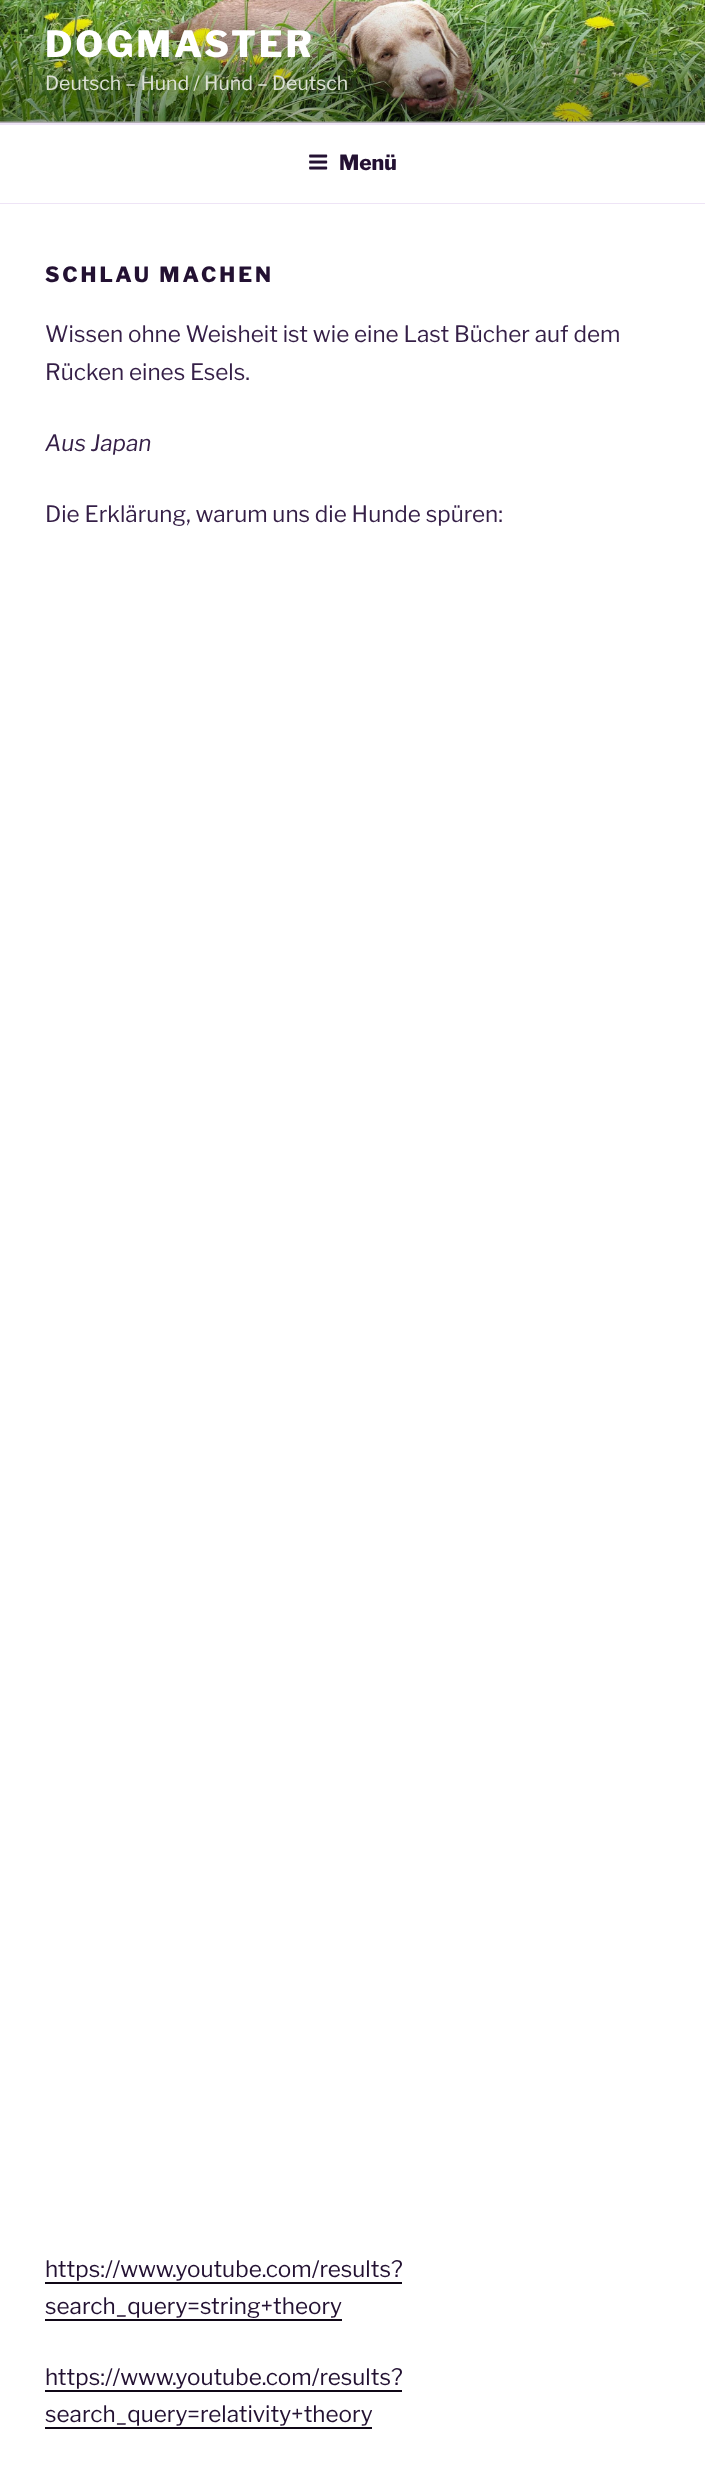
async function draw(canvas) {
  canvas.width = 705;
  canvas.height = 2474;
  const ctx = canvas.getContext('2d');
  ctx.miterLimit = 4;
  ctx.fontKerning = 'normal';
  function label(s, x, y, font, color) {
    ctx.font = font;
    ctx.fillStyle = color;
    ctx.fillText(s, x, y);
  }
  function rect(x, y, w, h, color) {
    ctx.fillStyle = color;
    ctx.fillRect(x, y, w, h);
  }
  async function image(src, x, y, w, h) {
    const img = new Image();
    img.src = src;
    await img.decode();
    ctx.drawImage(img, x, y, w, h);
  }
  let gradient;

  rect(0, 0, 705, 2474, '#faf7fc');
  await image('assets/img1.png', 0, 0, 705, 122);
  gradient = ctx.createLinearGradient(353, 0, 353, 123);
  gradient.addColorStop(0, '#00000000');
  gradient.addColorStop(0.75, '#0000004d');
  gradient.addColorStop(1, '#0000004d');
  ctx.fillStyle = gradient;
  ctx.fillRect(0, 7, 705, 116);
  ctx.letterSpacing = '2.9px';
  label('DOGMASTER', 45, 57, '800 36px Libre Franklin', '#fff');
  ctx.letterSpacing = '0px';
  label('Deutsch – Hund / Hund – Deutsch', 45, 90, '19.5px Libre Franklin', '#dce1d5');
  rect(0, 125, 705, 78, '#fff');
  rect(0, 123, 705, 2, '#eee4f6');
  rect(0, 203, 705, 1, '#eee4f6');
  await image('assets/img2.png', 309, 154, 19, 16);
  label('Menü', 339, 170, '800 21px Libre Franklin', '#231132');
  rect(0, 204, 705, 2270, '#fff');
  ctx.letterSpacing = '3px';
  label('SCHLAU MACHEN', 45, 282, '800 21px Libre Franklin', '#231132');
  ctx.letterSpacing = '0px';
  label('Wissen ohne Weisheit ist wie eine Last Bücher auf dem', 45, 342, '22.5px Libre Franklin', '#351f47');
  label('Rücken eines Esels.', 45, 380, '22.5px Libre Franklin', '#351f47');
  label('Aus Japan', 45, 451, 'italic 22.5px Libre Franklin', '#351f47');
  label('Die Erklärung, warum uns die Hunde spüren:', 45, 522, '22.5px Libre Franklin', '#351f47');
  label('https://www.youtube.com/results?', 45, 2277, '22.5px Libre Franklin', '#231132');
  rect(45, 2282, 357, 2, '#100817');
  label('search_query=string+theory', 45, 2314, '22.5px Libre Franklin', '#231132');
  rect(45, 2319, 297, 2, '#100817');
  label('https://www.youtube.com/results?', 45, 2385, '22.5px Libre Franklin', '#231132');
  rect(45, 2390, 357, 2, '#100817');
  label('search_query=relativity+theory', 45, 2422, '22.5px Libre Franklin', '#231132');
  rect(45, 2427, 327, 2, '#100817');
}

draw(document.querySelector('canvas'));
